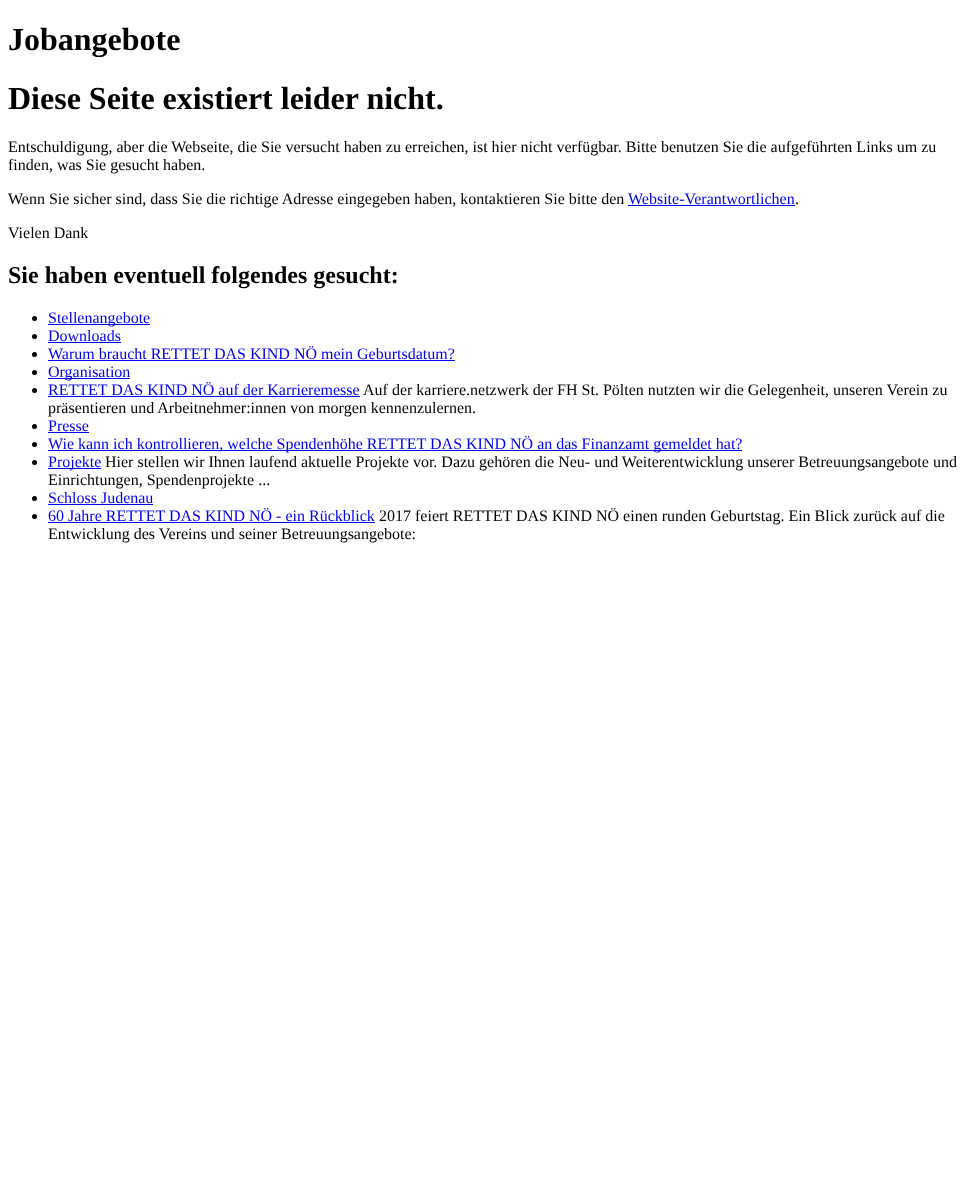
async function draw(canvas) {
  canvas.width = 975;
  canvas.height = 1192;
  const ctx = canvas.getContext('2d');
  ctx.miterLimit = 4;
  ctx.fontKerning = 'normal';
  function label(s, x, y, font, color) {
    ctx.font = font;
    ctx.fillStyle = color;
    ctx.fillText(s, x, y);
  }
  function rect(x, y, w, h, color) {
    ctx.fillStyle = color;
    ctx.fillRect(x, y, w, h);
  }

  rect(0, 0, 975, 1192, '#fff');
  label('Jobangebote', 8, 50, 'bold 32px Liberation Serif', '#000');
  label('Diese Seite existiert leider nicht.', 8, 109, 'bold 32px Liberation Serif', '#000');
  label('Entschuldigung, aber die Webseite, die Sie versucht haben zu erreichen, ist hier nicht verfügbar. Bitte benutzen Sie die aufgeführten Links um zu', 8, 152, '16px Liberation Serif', '#000');
  label('finden, was Sie gesucht haben.', 8, 170, '16px Liberation Serif', '#000');
  label('Wenn Sie sicher sind, dass Sie die richtige Adresse eingegeben haben, kontaktieren Sie bitte den', 8, 204, '16px Liberation Serif', '#000');
  label('Website-Verantwortlichen', 628, 204, '16px Liberation Serif', '#00e');
  rect(628, 205, 167, 1, '#00e');
  label('.', 795, 204, '16px Liberation Serif', '#000');
  label('Vielen Dank', 8, 238, '16px Liberation Serif', '#000');
  label('Sie haben eventuell folgendes gesucht:', 8, 283, 'bold 24px Liberation Serif', '#000');
  ctx.beginPath();
  ctx.arc(34.5, 318.5, 2.5, 0, 2 * Math.PI);
  ctx.fill();
  rect(48, 324, 102, 1, '#00e');
  label('Stellenangebote', 48, 323, '16px Liberation Serif', '#00e');
  ctx.fillStyle = '#000';
  ctx.beginPath();
  ctx.arc(34.5, 336.5, 2.5, 0, 2 * Math.PI);
  ctx.fill();
  label('Downloads', 48, 341, '16px Liberation Serif', '#00e');
  rect(48, 342, 73, 1, '#00e');
  ctx.fillStyle = '#000';
  ctx.beginPath();
  ctx.arc(34.5, 354.5, 2.5, 0, 2 * Math.PI);
  ctx.fill();
  label('Warum braucht RETTET DAS KIND NÖ mein Geburtsdatum?', 48, 359, '16px Liberation Serif', '#00e');
  rect(48, 360, 407, 1, '#00e');
  ctx.fillStyle = '#000';
  ctx.beginPath();
  ctx.arc(34.5, 372.5, 2.5, 0, 2 * Math.PI);
  ctx.fill();
  rect(48, 378, 82, 1, '#00e');
  label('Organisation', 48, 377, '16px Liberation Serif', '#00e');
  ctx.fillStyle = '#000';
  ctx.beginPath();
  ctx.arc(34.5, 390.5, 2.5, 0, 2 * Math.PI);
  ctx.fill();
  label('RETTET DAS KIND NÖ auf der Karrieremesse', 48, 395, '16px Liberation Serif', '#00e');
  rect(48, 396, 312, 1, '#00e');
  label('Auf der karriere.netzwerk der FH St. Pölten nutzten wir die Gelegenheit, unseren Verein zu', 363, 395, '16px Liberation Serif', '#000');
  label('präsentieren und Arbeitnehmer:innen von morgen kennenzulernen.', 48, 413, '16px Liberation Serif', '#000');
  ctx.beginPath();
  ctx.arc(34.5, 426.5, 2.5, 0, 2 * Math.PI);
  ctx.fill();
  label('Presse', 48, 431, '16px Liberation Serif', '#00e');
  rect(48, 432, 41, 1, '#00e');
  ctx.fillStyle = '#000';
  ctx.beginPath();
  ctx.arc(34.5, 444.5, 2.5, 0, 2 * Math.PI);
  ctx.fill();
  rect(48, 450, 694, 1, '#00e');
  label('Wie kann ich kontrollieren, welche Spendenhöhe RETTET DAS KIND NÖ an das Finanzamt gemeldet hat?', 48, 449, '16px Liberation Serif', '#00e');
  ctx.fillStyle = '#000';
  ctx.beginPath();
  ctx.arc(34.5, 462.5, 2.5, 0, 2 * Math.PI);
  ctx.fill();
  rect(48, 468, 53, 1, '#00e');
  label('Projekte', 48, 467, '16px Liberation Serif', '#00e');
  label('Hier stellen wir Ihnen laufend aktuelle Projekte vor. Dazu gehören die Neu- und Weiterentwicklung unserer Betreuungsangebote und', 105, 467, '16px Liberation Serif', '#000');
  label('Einrichtungen, Spendenprojekte ...', 48, 485, '16px Liberation Serif', '#000');
  ctx.beginPath();
  ctx.arc(34.5, 498.5, 2.5, 0, 2 * Math.PI);
  ctx.fill();
  label('Schloss Judenau', 48, 503, '16px Liberation Serif', '#00e');
  rect(48, 504, 105, 1, '#00e');
  ctx.fillStyle = '#000';
  ctx.beginPath();
  ctx.arc(34.5, 516.5, 2.5, 0, 2 * Math.PI);
  ctx.fill();
  label('60 Jahre RETTET DAS KIND NÖ - ein Rückblick', 48, 521, '16px Liberation Serif', '#00e');
  rect(48, 522, 327, 1, '#00e');
  label('2017 feiert RETTET DAS KIND NÖ einen runden Geburtstag. Ein Blick zurück auf die', 379, 521, '16px Liberation Serif', '#000');
  label('Entwicklung des Vereins und seiner Betreuungsangebote:', 48, 539, '16px Liberation Serif', '#000');
}

draw(document.querySelector('canvas'));
